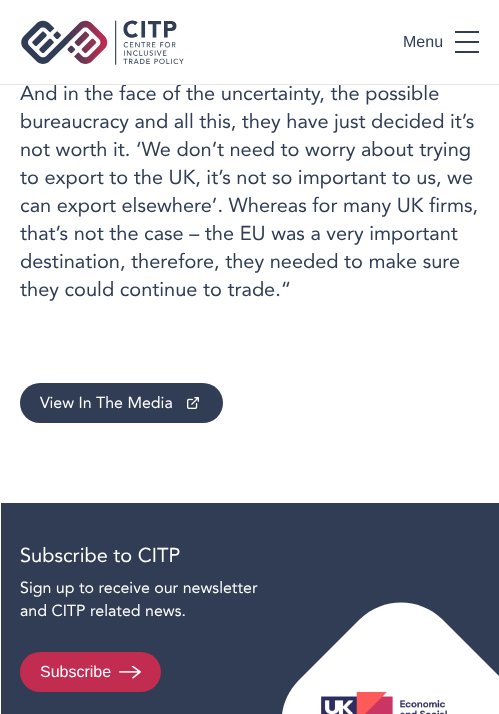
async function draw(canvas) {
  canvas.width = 499;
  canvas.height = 714;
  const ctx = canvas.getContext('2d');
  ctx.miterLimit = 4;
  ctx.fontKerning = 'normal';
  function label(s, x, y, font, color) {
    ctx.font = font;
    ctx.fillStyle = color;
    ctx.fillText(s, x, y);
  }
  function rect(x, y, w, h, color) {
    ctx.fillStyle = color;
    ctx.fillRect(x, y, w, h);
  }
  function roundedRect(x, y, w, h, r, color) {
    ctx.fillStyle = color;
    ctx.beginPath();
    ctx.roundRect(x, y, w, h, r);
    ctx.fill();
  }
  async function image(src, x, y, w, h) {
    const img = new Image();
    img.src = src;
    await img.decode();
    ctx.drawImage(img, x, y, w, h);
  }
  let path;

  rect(0, 0, 499, 714, '#fff');
  label('And in the face of the uncertainty, the possible', 20, 100, '20px Avenir', '#303d55');
  rect(0, 84, 499, 1, '#e6e6e6');
  await image('assets/img1.png', 21, 20, 163, 45);
  rect(455, 31, 24, 2, '#303d55');
  label('Menu', 403, 47, '16px Liberation Sans', '#303d55');
  rect(455, 51, 24, 2, '#303d55');
  rect(455, 41, 24, 2, '#303d55');
  label('bureaucracy and all this, they have just decided it’s', 20, 128, '20px Avenir', '#303d55');
  label('not worth it. ‘We don’t need to worry about trying', 20, 156, '20px Avenir', '#303d55');
  label('to export to the UK, it’s not so important to us, we', 20, 184, '20px Avenir', '#303d55');
  label('can export elsewhere’. Whereas for many UK firms,', 20, 212, '20px Avenir', '#303d55');
  label('that’s not the case – the EU was a very important', 20, 240, '20px Avenir', '#303d55');
  label('destination, therefore, they needed to make sure', 20, 268, '20px Avenir', '#303d55');
  label('they could continue to trade.“', 20, 296, '20px Avenir', '#303d55');
  roundedRect(20, 383, 203, 40, 20, '#303d55');
  label('View In The Media', 40, 408, '16px Avenir', '#fff');
  await image('assets/img2.png', 187, 397, 12, 12);
  rect(1, 503, 498, 211, '#303d55');
  label('Subscribe to CITP', 20, 562, '20px Avenir', '#fff');
  label('Sign up to receive our newsletter', 20, 593, '16px Avenir', '#fff');
  label('and CITP related news.', 20, 616, '16px Avenir', '#fff');
  path = new Path2D('M442 619L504 681C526 704 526 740 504 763L442 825C419 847 383 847 360 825L298 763C276 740 276 704 298 681L360 619C383 597 419 597 442 619Z');
  ctx.fill(path);
  roundedRect(20, 652, 141, 40, 20, '#c32c51');
  label('Subscribe', 40, 677, '16px Liberation Sans', '#fff');
  await image('assets/img3.png', 119, 666, 22, 13);
  await image('assets/img4.png', 321, 692, 126, 22);
}

draw(document.querySelector('canvas'));
